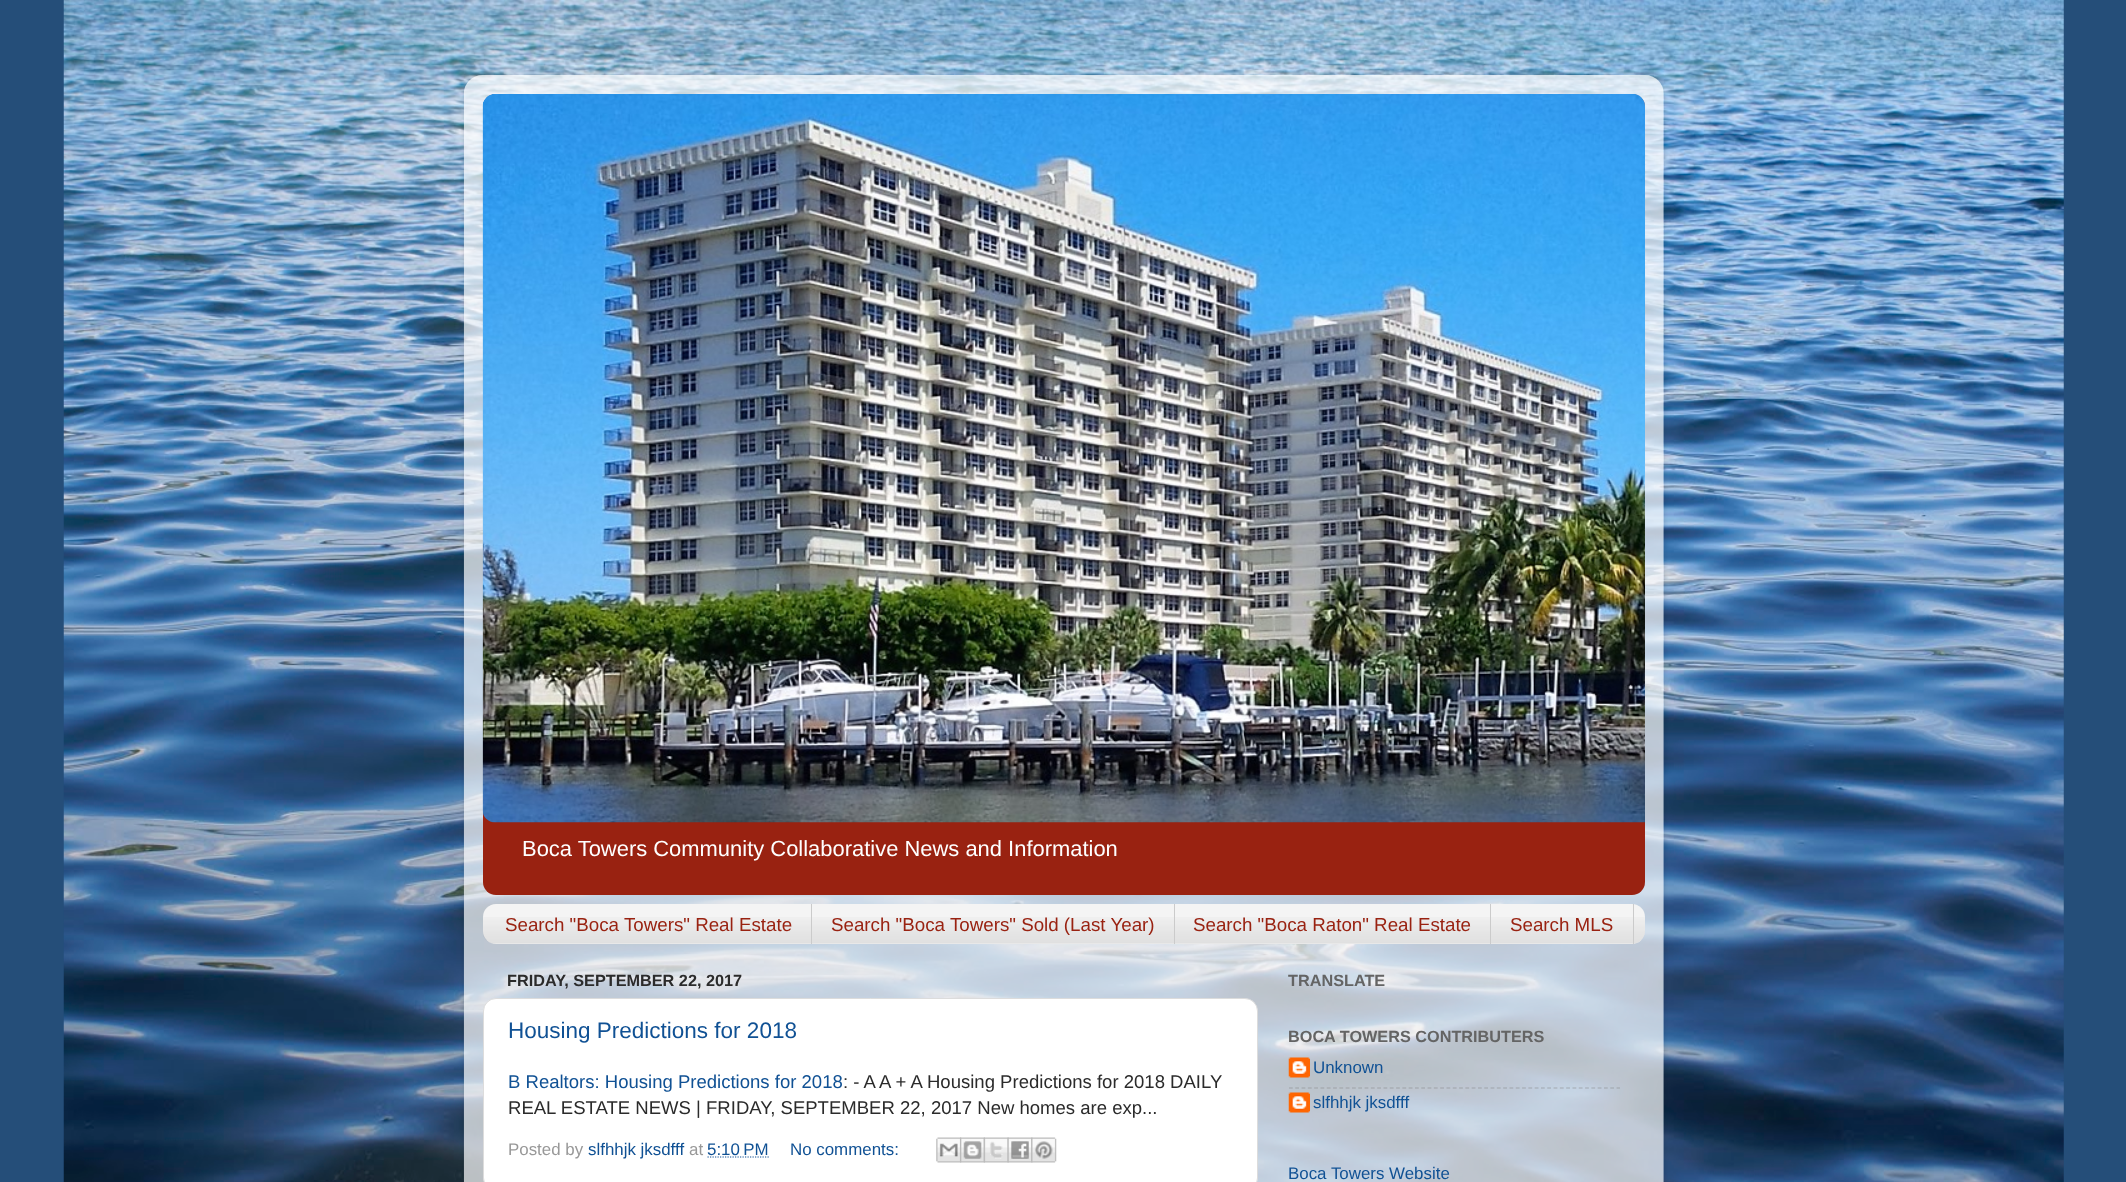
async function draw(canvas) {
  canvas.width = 2126;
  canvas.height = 1182;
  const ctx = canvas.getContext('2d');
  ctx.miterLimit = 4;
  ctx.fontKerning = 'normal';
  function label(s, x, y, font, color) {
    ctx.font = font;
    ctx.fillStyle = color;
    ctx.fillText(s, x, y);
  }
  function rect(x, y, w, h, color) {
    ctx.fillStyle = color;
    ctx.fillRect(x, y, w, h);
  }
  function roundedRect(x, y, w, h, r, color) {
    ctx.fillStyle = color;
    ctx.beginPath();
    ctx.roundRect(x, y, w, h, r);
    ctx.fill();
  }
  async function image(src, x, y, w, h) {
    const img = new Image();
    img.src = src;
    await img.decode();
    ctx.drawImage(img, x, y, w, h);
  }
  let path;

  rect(0, 0, 2126, 1182, '#254e79');
  await image('assets/img1.png', 63, 0, 2001, 1182);
  ctx.save();
  path = new Path2D('M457 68H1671V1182H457ZM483 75H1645C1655.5 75 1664 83.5 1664 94V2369C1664 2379.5 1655.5 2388 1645 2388H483C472.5 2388 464 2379.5 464 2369V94C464 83.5 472.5 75 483 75Z');
  ctx.clip(path, 'evenodd');
  ctx.fillStyle = '#00000026';
  ctx.filter = 'blur(2px)';
  ctx.beginPath();
  ctx.roundRect(464, 75, 1200, 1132, 19);
  ctx.fill();
  ctx.filter = 'none';
  ctx.restore();
  await image('assets/img2.png', 463, 75, 1201, 1107);
  roundedRect(483, 94, 1162, 801, 13, '#921');
  await image('assets/img3.png', 483, 94, 1162, 12);
  await image('assets/img4.png', 482, 94, 1163, 729);
  label('Boca Towers Community Collaborative News and Information', 522, 856, '21.95px Liberation Sans', '#fff');
  roundedRect(483, 904, 1162, 40, 13, '#f4f4f4');
  await image('assets/img5.png', 483, 917, 1162, 27);
  rect(811, 904, 1, 40, '#cbcbcb');
  label('Search "Boca Towers" Real Estate', 505, 931, '18.75px Liberation Sans', '#921');
  rect(1174, 904, 1, 40, '#cbcbcb');
  label('Search "Boca Towers" Sold (Last Year)', 831, 931, '18.75px Liberation Sans', '#921');
  rect(1490, 904, 1, 40, '#cbcbcb');
  label('Search "Boca Raton" Real Estate', 1193, 931, '18.75px Liberation Sans', '#921');
  rect(1633, 904, 1, 40, '#cbcbcb');
  label('Search MLS', 1510, 931, '18.75px Liberation Sans', '#921');
  label('FRIDAY, SEPTEMBER 22, 2017', 507, 986, 'bold 16.25px Liberation Sans', '#2b2b2b');
  ctx.fillStyle = '#fff';
  ctx.beginPath();
  ctx.roundRect(483.5, 998.5, 774, 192, 12.5);
  ctx.fill();
  ctx.strokeStyle = '#dcdcdc';
  ctx.stroke();
  label('Housing Predictions for 2018', 508, 1038, '22.5px Liberation Sans', '#105194');
  label('B Realtors: Housing Predictions for 2018', 508, 1088, '18.55px Liberation Sans', '#105194');
  label(': - A A + A Housing Predictions for 2018 DAILY', 843, 1088, '18.55px Liberation Sans', '#2b2b2b');
  label('REAL ESTATE NEWS | FRIDAY, SEPTEMBER 22, 2017 New homes are exp...', 508, 1114, '18.55px Liberation Sans', '#2b2b2b');
  label('Posted by', 508, 1155, '16.9px Liberation Sans', '#989898');
  label('slfhhjk jksdfff', 588, 1155, '16.9px Liberation Sans', '#105194');
  label('at', 689, 1155, '16.9px Liberation Sans', '#989898');
  label('5:10 PM', 707, 1155, '16.9px Liberation Sans', '#105194');
  path = new Path2D('M707.5 1157H769');
  ctx.strokeStyle = '#105194';
  ctx.lineWidth = 1.2;
  ctx.setLineDash([1.25, 1.25]);
  ctx.stroke(path);
  label('No comments:', 790, 1155, '16.9px Liberation Sans', '#105194');
  await image('assets/img6.png', 936, 1137, 26, 26);
  await image('assets/img7.png', 960, 1137, 25, 26);
  await image('assets/img8.png', 983, 1137, 26, 26);
  await image('assets/img9.png', 1007, 1137, 26, 26);
  await image('assets/img10.png', 1031, 1137, 26, 26);
  label('TRANSLATE', 1288, 986, 'bold 16.25px Liberation Sans', '#646464');
  label('BOCA TOWERS CONTRIBUTERS', 1288, 1042, 'bold 16.25px Liberation Sans', '#646464');
  await image('assets/img11.png', 1288, 1057, 22, 21);
  label('Unknown', 1313, 1073, '16.9px Liberation Sans', '#105194');
  path = new Path2D('M1289 1088H1620');
  ctx.strokeStyle = '#80808080';
  ctx.setLineDash([3.75, 2.55]);
  ctx.stroke(path);
  await image('assets/img12.png', 1288, 1092, 22, 21);
  label('slfhhjk jksdfff', 1313, 1108, '16.9px Liberation Sans', '#105194');
  label('Boca Towers Website', 1288, 1179, '16.9px Liberation Sans', '#105194');
}

draw(document.querySelector('canvas'));
